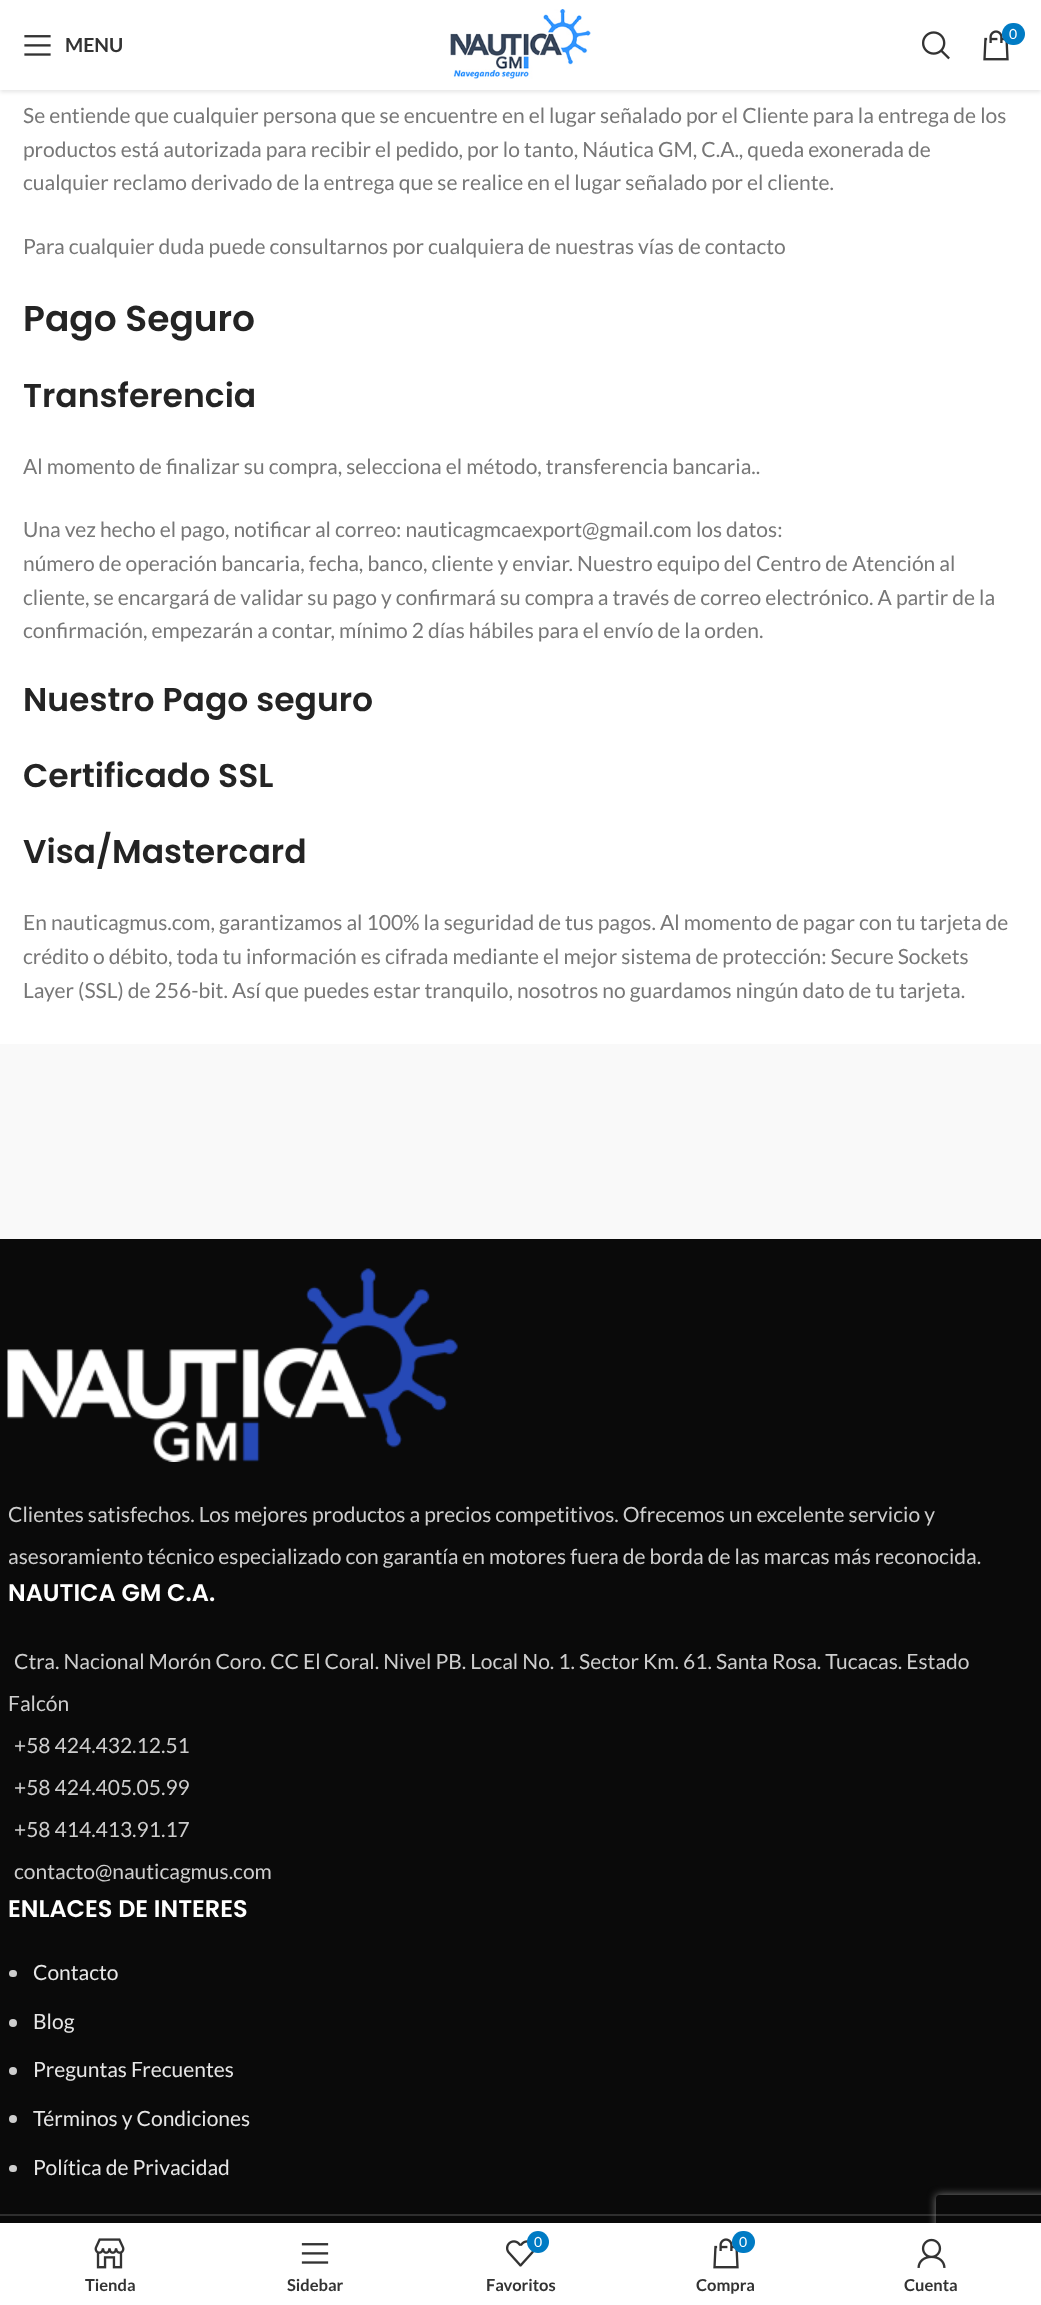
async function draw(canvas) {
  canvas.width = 1041;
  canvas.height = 2305;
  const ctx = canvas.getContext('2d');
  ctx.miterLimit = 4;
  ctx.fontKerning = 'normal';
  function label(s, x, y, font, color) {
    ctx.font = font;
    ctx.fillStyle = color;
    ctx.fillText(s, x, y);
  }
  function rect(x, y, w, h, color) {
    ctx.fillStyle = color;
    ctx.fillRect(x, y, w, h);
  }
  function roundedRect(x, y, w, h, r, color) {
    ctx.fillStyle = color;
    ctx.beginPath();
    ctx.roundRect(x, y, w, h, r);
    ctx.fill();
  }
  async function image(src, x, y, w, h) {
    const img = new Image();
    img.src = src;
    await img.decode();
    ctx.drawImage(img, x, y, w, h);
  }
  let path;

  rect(0, 0, 1041, 2305, '#fff');
  ctx.fillStyle = '#0000001a';
  ctx.filter = 'blur(2px)';
  ctx.beginPath();
  ctx.rect(0, 2, 1041, 90);
  ctx.fill();
  ctx.filter = 'none';
  rect(0, 0, 1041, 90, '#fff');
  await image('assets/img1.png', 450, 9, 141, 70);
  await image('assets/img2.png', 922, 31, 28, 29);
  await image('assets/img3.png', 983, 30, 26, 31);
  roundedRect(1002, 23, 23, 22, 11, '#007bc4');
  label('0', 1009, 39, '14px Lato', '#fff');
  await image('assets/img4.png', 24, 35, 27, 21);
  label('MENU', 65, 52, 'bold 19.5px Lato', '#333');
  label('Se entiende que cualquier persona que se encuentre en el lugar señalado por el Cliente para la entrega de los', 23, 123, '21px Lato', '#777');
  label('productos está autorizada para recibir el pedido, por lo tanto, Náutica GM, C.A., queda exonerada de', 23, 157, '21px Lato', '#777');
  label('cualquier reclamo derivado de la entrega que se realice en el lugar señalado por el cliente.', 23, 190, '21px Lato', '#777');
  label('Para cualquier duda puede consultarnos por cualquiera de nuestras vías de contacto', 23, 254, '21px Lato', '#777');
  label('Pago Seguro', 23, 331, '600 36px Poppins', '#242424');
  label('Transferencia', 23, 407, '600 33px Poppins', '#242424');
  label('Al momento de finalizar su compra, selecciona el método, transferencia bancaria..', 23, 474, '21px Lato', '#777');
  label('Una vez hecho el pago, notificar al correo: nauticagmcaexport@gmail.com los datos:', 23, 537, '21px Lato', '#777');
  label('número de operación bancaria, fecha, banco, cliente y enviar. Nuestro equipo del Centro de Atención al', 23, 571, '21px Lato', '#777');
  label('cliente, se encargará de validar su pago y confirmará su compra a través de correo electrónico. A partir de la', 23, 605, '21px Lato', '#777');
  label('confirmación, empezarán a contar, mínimo 2 días hábiles para el envío de la orden.', 23, 638, '21px Lato', '#777');
  label('Nuestro Pago seguro', 23, 711, '600 33px Poppins', '#242424');
  label('Certificado SSL', 23, 787, '600 33px Poppins', '#242424');
  label('Visa/Mastercard', 23, 863, '600 33px Poppins', '#242424');
  label('En nauticagmus.com, garantizamos al 100% la seguridad de tus pagos. Al momento de pagar con tu tarjeta de', 23, 930, '21px Lato', '#777');
  label('crédito o débito, toda tu información es cifrada mediante el mejor sistema de protección: Secure Sockets', 23, 964, '21px Lato', '#777');
  label('Layer (SSL) de 256-bit. Así que puedes estar tranquilo, nosotros no guardamos ningún dato de tu tarjeta.', 23, 998, '21px Lato', '#777');
  rect(0, 1044, 1041, 195, '#f9f9f9');
  rect(0, 1239, 1041, 984, '#0a0a0a');
  await image('assets/img5.png', 7, 1268, 451, 194);
  label('Clientes satisfechos. Los mejores productos a precios competitivos. Ofrecemos un excelente servicio y', 8, 1522, '21px Lato', '#cecece');
  label('asesoramiento técnico especializado con garantía en motores fuera de borda de las marcas más reconocida.', 8, 1564, '21px Lato', '#cecece');
  label('NAUTICA GM C.A.', 8, 1601, '600 24px Poppins', '#fff');
  label('Ctra. Nacional Morón Coro. CC El Coral. Nivel PB. Local No. 1. Sector Km. 61. Santa Rosa. Tucacas. Estado', 14, 1669, '21px Lato', '#cecece');
  label('Falcón', 8, 1711, '21px Lato', '#cecece');
  label('+58 424.432.12.51', 14, 1753, '21px Lato', '#cecece');
  label('+58 424.405.05.99', 14, 1795, '21px Lato', '#cecece');
  label('+58 414.413.91.17', 14, 1837, '21px Lato', '#cecece');
  label('contacto@nauticagmus.com', 14, 1879, '21px Lato', '#cecece');
  label('ENLACES DE INTERES', 8, 1917, '600 24px Poppins', '#fff');
  roundedRect(9, 1970, 8, 7, 3.5, '#cecece');
  label('Contacto', 33, 1980, '21px Lato', '#e7e7e7');
  ctx.fillStyle = '#cecece';
  ctx.beginPath();
  ctx.arc(13, 2023, 4, 0, 2 * Math.PI);
  ctx.fill();
  label('Blog', 33, 2029, '21px Lato', '#e7e7e7');
  ctx.fillStyle = '#cecece';
  ctx.beginPath();
  ctx.arc(13, 2071, 4, 0, 2 * Math.PI);
  ctx.fill();
  label('Preguntas Frecuentes', 33, 2077, '21px Lato', '#e7e7e7');
  ctx.fillStyle = '#cecece';
  ctx.beginPath();
  ctx.arc(13, 2119, 4, 0, 2 * Math.PI);
  ctx.fill();
  label('Términos y Condiciones', 33, 2126, '21px Lato', '#e7e7e7');
  roundedRect(9, 2165, 8, 7, 3.5, '#cecece');
  label('Política de Privacidad', 33, 2175, '21px Lato', '#e7e7e7');
  rect(0, 2214, 1041, 2, '#2f2f2f');
  ctx.fillStyle = '#0000001f';
  ctx.filter = 'blur(7px)';
  ctx.beginPath();
  ctx.rect(0, 2223, 1041, 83);
  ctx.fill();
  ctx.filter = 'none';
  ctx.save();
  path = new Path2D('M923 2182H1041V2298H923ZM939 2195H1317C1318.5 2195 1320 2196.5 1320 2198V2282C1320 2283.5 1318.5 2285 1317 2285H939C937.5 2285 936 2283.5 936 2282V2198C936 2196.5 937.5 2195 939 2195Z');
  ctx.clip(path, 'evenodd');
  ctx.fillStyle = '#808080';
  ctx.filter = 'blur(4px)';
  ctx.beginPath();
  ctx.roundRect(936, 2195, 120, 90, 3);
  ctx.fill();
  ctx.filter = 'none';
  ctx.restore();
  rect(0, 2223, 1041, 82, '#fff');
  await image('assets/img6.png', 94, 2238, 31, 31);
  label('Tienda', 85, 2291, 'bold 16.5px Lato', '#333');
  await image('assets/img7.png', 301, 2243, 28, 21);
  label('Sidebar', 287, 2291, 'bold 16.5px Lato', '#333');
  await image('assets/img8.png', 506, 2240, 28, 27);
  ctx.fillStyle = '#007bc4';
  ctx.beginPath();
  ctx.arc(538, 2242, 11, 0, 2 * Math.PI);
  ctx.fill();
  label('0', 534, 2247, '14px Lato', '#fff');
  label('Favoritos', 486, 2291, 'bold 16.5px Lato', '#333');
  await image('assets/img3.png', 713, 2238, 26, 31);
  roundedRect(732, 2231, 23, 22, 11, '#007bc4');
  label('0', 739, 2247, '14px Lato', '#fff');
  label('Compra', 696, 2291, 'bold 16.5px Lato', '#333');
  await image('assets/img9.png', 917, 2238, 29, 30);
  label('Cuenta', 904, 2291, 'bold 16.5px Lato', '#333');
}

draw(document.querySelector('canvas'));
